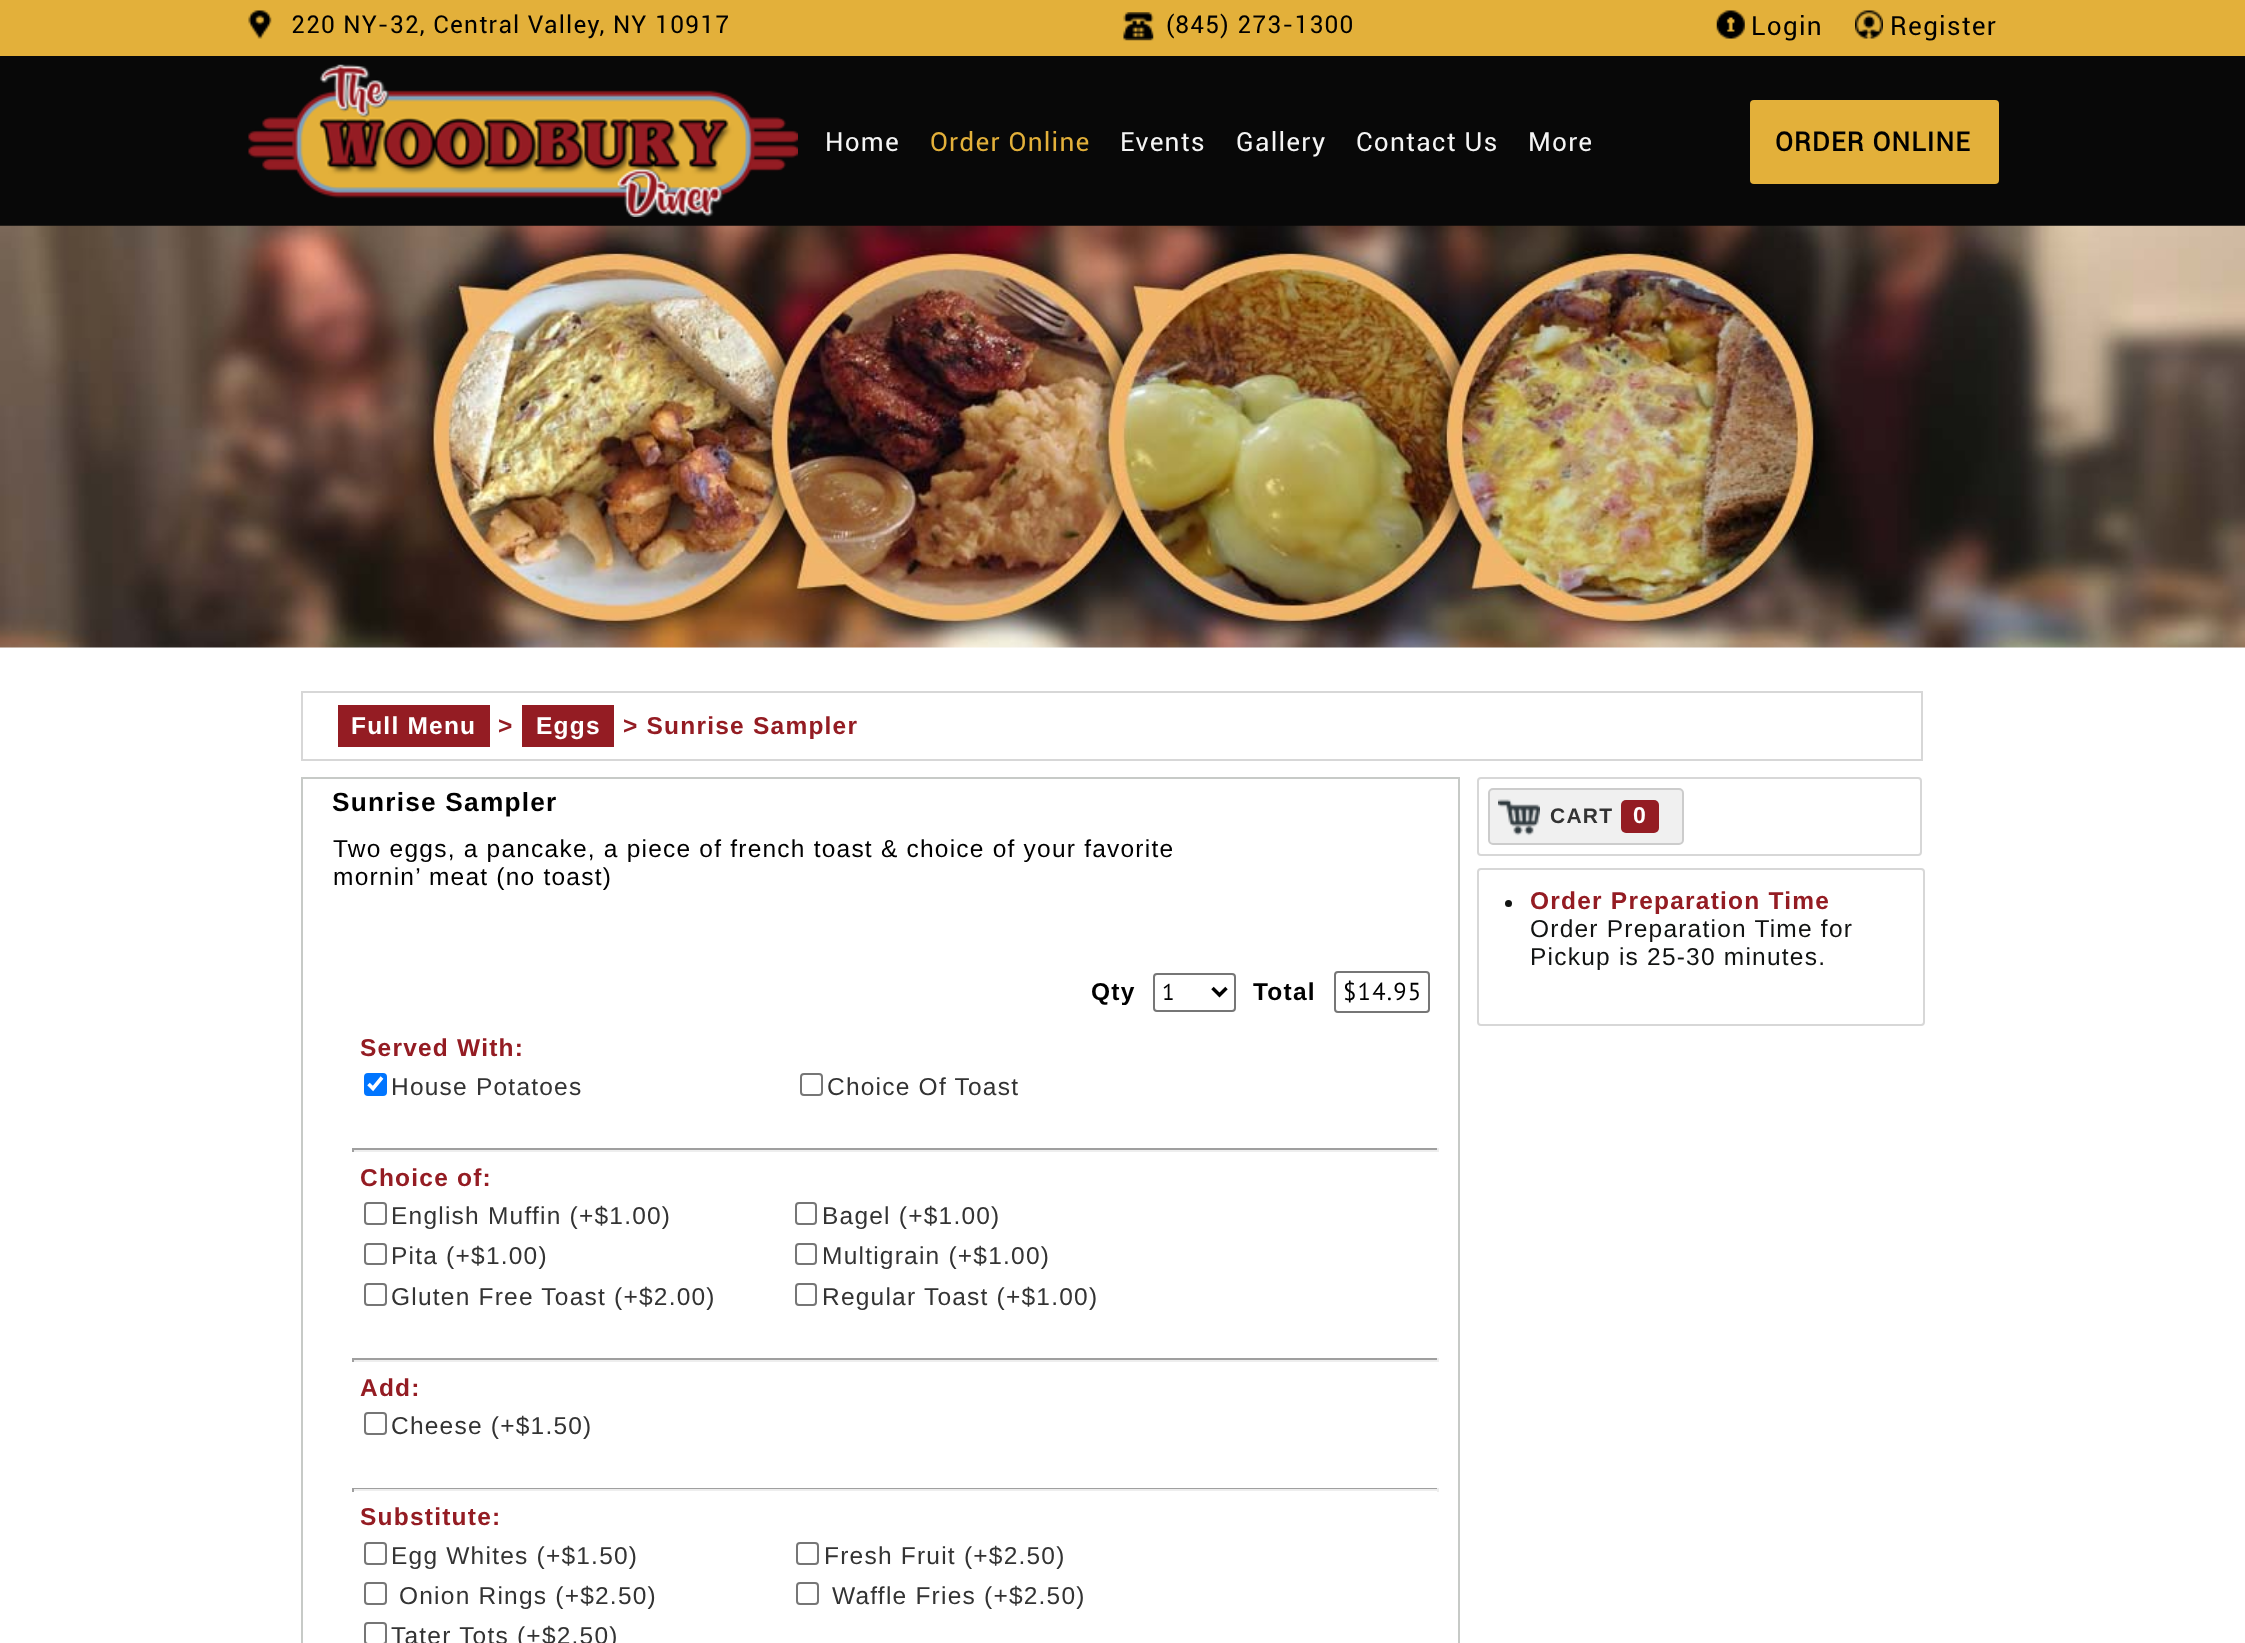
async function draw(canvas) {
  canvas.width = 2245;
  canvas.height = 1643;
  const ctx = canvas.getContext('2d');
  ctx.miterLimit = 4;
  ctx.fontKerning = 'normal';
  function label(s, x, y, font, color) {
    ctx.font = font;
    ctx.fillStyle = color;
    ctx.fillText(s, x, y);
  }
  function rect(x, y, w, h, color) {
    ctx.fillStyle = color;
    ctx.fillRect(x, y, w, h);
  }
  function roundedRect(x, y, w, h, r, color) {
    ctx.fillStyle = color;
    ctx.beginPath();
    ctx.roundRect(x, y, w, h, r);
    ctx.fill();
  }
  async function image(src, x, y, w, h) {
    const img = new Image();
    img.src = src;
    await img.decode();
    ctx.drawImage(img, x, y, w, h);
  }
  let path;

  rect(0, 0, 2245, 1643, '#fff');
  rect(0, 56, 2245, 170, '#080808');
  rect(0, 0, 2245, 56, '#e3b03a');
  await image('assets/img1.png', 248, 10, 24, 29);
  ctx.letterSpacing = '1.22px';
  label('220 NY-32, Central Valley, NY 10917', 291, 33, '24.5px Roboto', '#000');
  await image('assets/img2.png', 1123, 12, 31, 29);
  label('(845) 273-1300', 1166, 33, '24.5px Roboto', '#000');
  await image('assets/img3.png', 1716, 10, 29, 29);
  label('Login', 1751, 35, '26.25px Roboto', '#000');
  await image('assets/img4.png', 1855, 10, 28, 29);
  label('Register', 1890, 35, '26.25px Roboto', '#000');
  await image('assets/img5.png', 248, 64, 550, 153);
  label('Home', 825, 151, '26.25px Roboto', '#f5f5f5');
  label('Order Online', 930, 151, '26.25px Roboto', '#e3b03a');
  label('Events', 1120, 151, '26.25px Roboto', '#f5f5f5');
  label('Gallery', 1236, 151, '26.25px Roboto', '#f5f5f5');
  label('Contact Us', 1356, 151, '26.25px Roboto', '#f5f5f5');
  label('More', 1528, 151, '26.25px Roboto', '#f5f5f5');
  roundedRect(1750, 100, 249, 84, 4, '#e3b03a');
  label('ORDER ONLINE', 1775, 151, 'bold 26.25px Roboto', '#000');
  await image('assets/img6.png', 0, 225, 2245, 423);
  ctx.strokeStyle = '#d7d7d7';
  ctx.lineWidth = 2;
  ctx.strokeRect(302, 692, 1620, 68);
  rect(338, 705, 152, 42, '#941c23');
  label('Full Menu', 351, 734, 'bold 24.5px Liberation Sans', '#fff');
  label('>', 498, 734, 'bold 24.5px Liberation Sans', '#941c23');
  rect(522, 705, 92, 42, '#941c23');
  label('Eggs', 536, 734, 'bold 24.5px Liberation Sans', '#fff');
  label('> Sunrise Sampler', 623, 734, 'bold 24.5px Liberation Sans', '#941c23');
  ctx.strokeStyle = '#c7cac7';
  ctx.strokeRect(302, 778, 1157, 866);
  label('Sunrise Sampler', 332, 811, 'bold 26.25px Liberation Sans', '#000');
  label('Two eggs, a pancake, a piece of french toast & choice of your favorite', 333, 857, '24.5px Liberation Sans', '#000');
  label('mornin’ meat (no toast)', 333, 885, '24.5px Liberation Sans', '#000');
  label('Qty', 1091, 1000, 'bold 24.5px Liberation Sans', '#000');
  ctx.beginPath();
  ctx.roundRect(1154, 974, 81, 37, 3);
  ctx.strokeStyle = '#767676';
  ctx.stroke();
  path = new Path2D('M1212.5 988L1219.5 995L1226.5 988');
  ctx.strokeStyle = '#000';
  ctx.lineWidth = 3.5;
  ctx.stroke(path);
  ctx.letterSpacing = '1px';
  label('1', 1162, 1000, '23px PT Sans', '#000');
  ctx.letterSpacing = '1.22px';
  label('Total', 1253, 1000, 'bold 24.5px Liberation Sans', '#000');
  ctx.beginPath();
  ctx.roundRect(1335, 972, 94, 40, 3);
  ctx.strokeStyle = '#767676';
  ctx.lineWidth = 2;
  ctx.stroke();
  label('$14.95', 1343, 1000, '24.5px PT Sans', '#000');
  label('Served With:', 360, 1056, 'bold 24.5px Liberation Sans', '#941c23');
  roundedRect(364, 1073, 23, 23, 4, '#0075ff');
  path = new Path2D('M368.5 1084L373 1088.5L382 1077.5');
  ctx.strokeStyle = '#fff';
  ctx.lineWidth = 3.6;
  ctx.stroke(path);
  label('House Potatoes', 391, 1095, '24.5px Liberation Sans', '#333');
  ctx.beginPath();
  ctx.roundRect(801, 1074, 21, 21, 3);
  ctx.strokeStyle = '#767676';
  ctx.lineWidth = 2;
  ctx.stroke();
  label('Choice Of Toast', 827, 1095, '24.5px Liberation Sans', '#333');
  rect(352, 1148, 1087, 2, '#9f9f9f');
  rect(1437, 1148, 2, 4, '#eee');
  rect(352, 1150, 1087, 2, '#eee');
  rect(352, 1148, 2, 4, '#9f9f9f');
  label('Choice of:', 360, 1186, 'bold 24.5px Liberation Sans', '#941c23');
  ctx.beginPath();
  ctx.roundRect(365, 1203, 21, 21, 3);
  ctx.stroke();
  label('English Muffin (+$1.00)', 391, 1224, '24.5px Liberation Sans', '#333');
  ctx.beginPath();
  ctx.roundRect(796, 1203, 20, 21, 3);
  ctx.stroke();
  label('Bagel (+$1.00)', 822, 1224, '24.5px Liberation Sans', '#333');
  ctx.beginPath();
  ctx.roundRect(365, 1244, 21, 20, 3);
  ctx.stroke();
  label('Pita (+$1.00)', 391, 1264, '24.5px Liberation Sans', '#333');
  ctx.beginPath();
  ctx.roundRect(796, 1244, 20, 20, 3);
  ctx.stroke();
  label('Multigrain (+$1.00)', 822, 1264, '24.5px Liberation Sans', '#333');
  ctx.beginPath();
  ctx.roundRect(365, 1284, 21, 21, 3);
  ctx.stroke();
  label('Gluten Free Toast (+$2.00)', 391, 1305, '24.5px Liberation Sans', '#333');
  ctx.beginPath();
  ctx.roundRect(796, 1284, 20, 21, 3);
  ctx.stroke();
  label('Regular Toast (+$1.00)', 822, 1305, '24.5px Liberation Sans', '#333');
  rect(352, 1358, 1087, 2, '#9f9f9f');
  rect(1437, 1358, 2, 4, '#eee');
  rect(352, 1360, 1087, 2, '#eee');
  rect(352, 1358, 2, 4, '#9f9f9f');
  label('Add:', 360, 1396, 'bold 24.5px Liberation Sans', '#941c23');
  ctx.beginPath();
  ctx.roundRect(365, 1413, 21, 21, 3);
  ctx.stroke();
  label('Cheese (+$1.50)', 391, 1434, '24.5px Liberation Sans', '#333');
  rect(352, 1488, 1087, 1, '#9f9f9f');
  rect(1437, 1488, 2, 4, '#eee');
  rect(352, 1489, 1087, 2, '#eee');
  rect(352, 1488, 2, 4, '#9f9f9f');
  label('Substitute:', 360, 1525, 'bold 24.5px Liberation Sans', '#941c23');
  ctx.beginPath();
  ctx.roundRect(365, 1543, 21, 21, 3);
  ctx.stroke();
  label('Egg Whites (+$1.50)', 391, 1564, '24.5px Liberation Sans', '#333');
  ctx.beginPath();
  ctx.roundRect(797, 1543, 21, 21, 3);
  ctx.stroke();
  label('Fresh Fruit (+$2.50)', 824, 1564, '24.5px Liberation Sans', '#333');
  ctx.beginPath();
  ctx.roundRect(365, 1583, 21, 21, 3);
  ctx.stroke();
  label('Onion Rings (+$2.50)', 399, 1604, '24.5px Liberation Sans', '#333');
  ctx.beginPath();
  ctx.roundRect(797, 1583, 21, 21, 3);
  ctx.stroke();
  label('Waffle Fries (+$2.50)', 832, 1604, '24.5px Liberation Sans', '#333');
  ctx.beginPath();
  ctx.roundRect(365, 1623, 21, 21, 3);
  ctx.stroke();
  label('Tater Tots (+$2.50)', 391, 1644, '24.5px Liberation Sans', '#333');
  ctx.beginPath();
  ctx.roundRect(1478, 778, 443, 77, 3);
  ctx.strokeStyle = '#d7d7d7';
  ctx.stroke();
  ctx.fillStyle = '#f0f0f0';
  ctx.beginPath();
  ctx.roundRect(1489, 789, 194, 55, 4);
  ctx.fill();
  ctx.strokeStyle = '#ccc';
  ctx.stroke();
  await image('assets/img7.png', 1498, 799, 42, 37);
  label('CART', 1550, 823, 'bold 21px Liberation Sans', '#333');
  roundedRect(1621, 800, 38, 33, 5, '#941c23');
  label('0', 1633, 823, 'bold 23px Liberation Sans', '#fff');
  ctx.beginPath();
  ctx.roundRect(1478, 869, 446, 156, 3);
  ctx.strokeStyle = '#d7d7d7';
  ctx.stroke();
  ctx.fillStyle = '#111312';
  ctx.beginPath();
  ctx.arc(1508.5, 903.5, 3.5, 0, 2 * Math.PI);
  ctx.fill();
  label('Order Preparation Time', 1530, 909, 'bold 24.5px Liberation Sans', '#941c23');
  label('Order Preparation Time for', 1530, 937, '24.5px Liberation Sans', '#111312');
  label('Pickup is 25-30 minutes.', 1530, 965, '24.5px Liberation Sans', '#111312');
}

draw(document.querySelector('canvas'));
